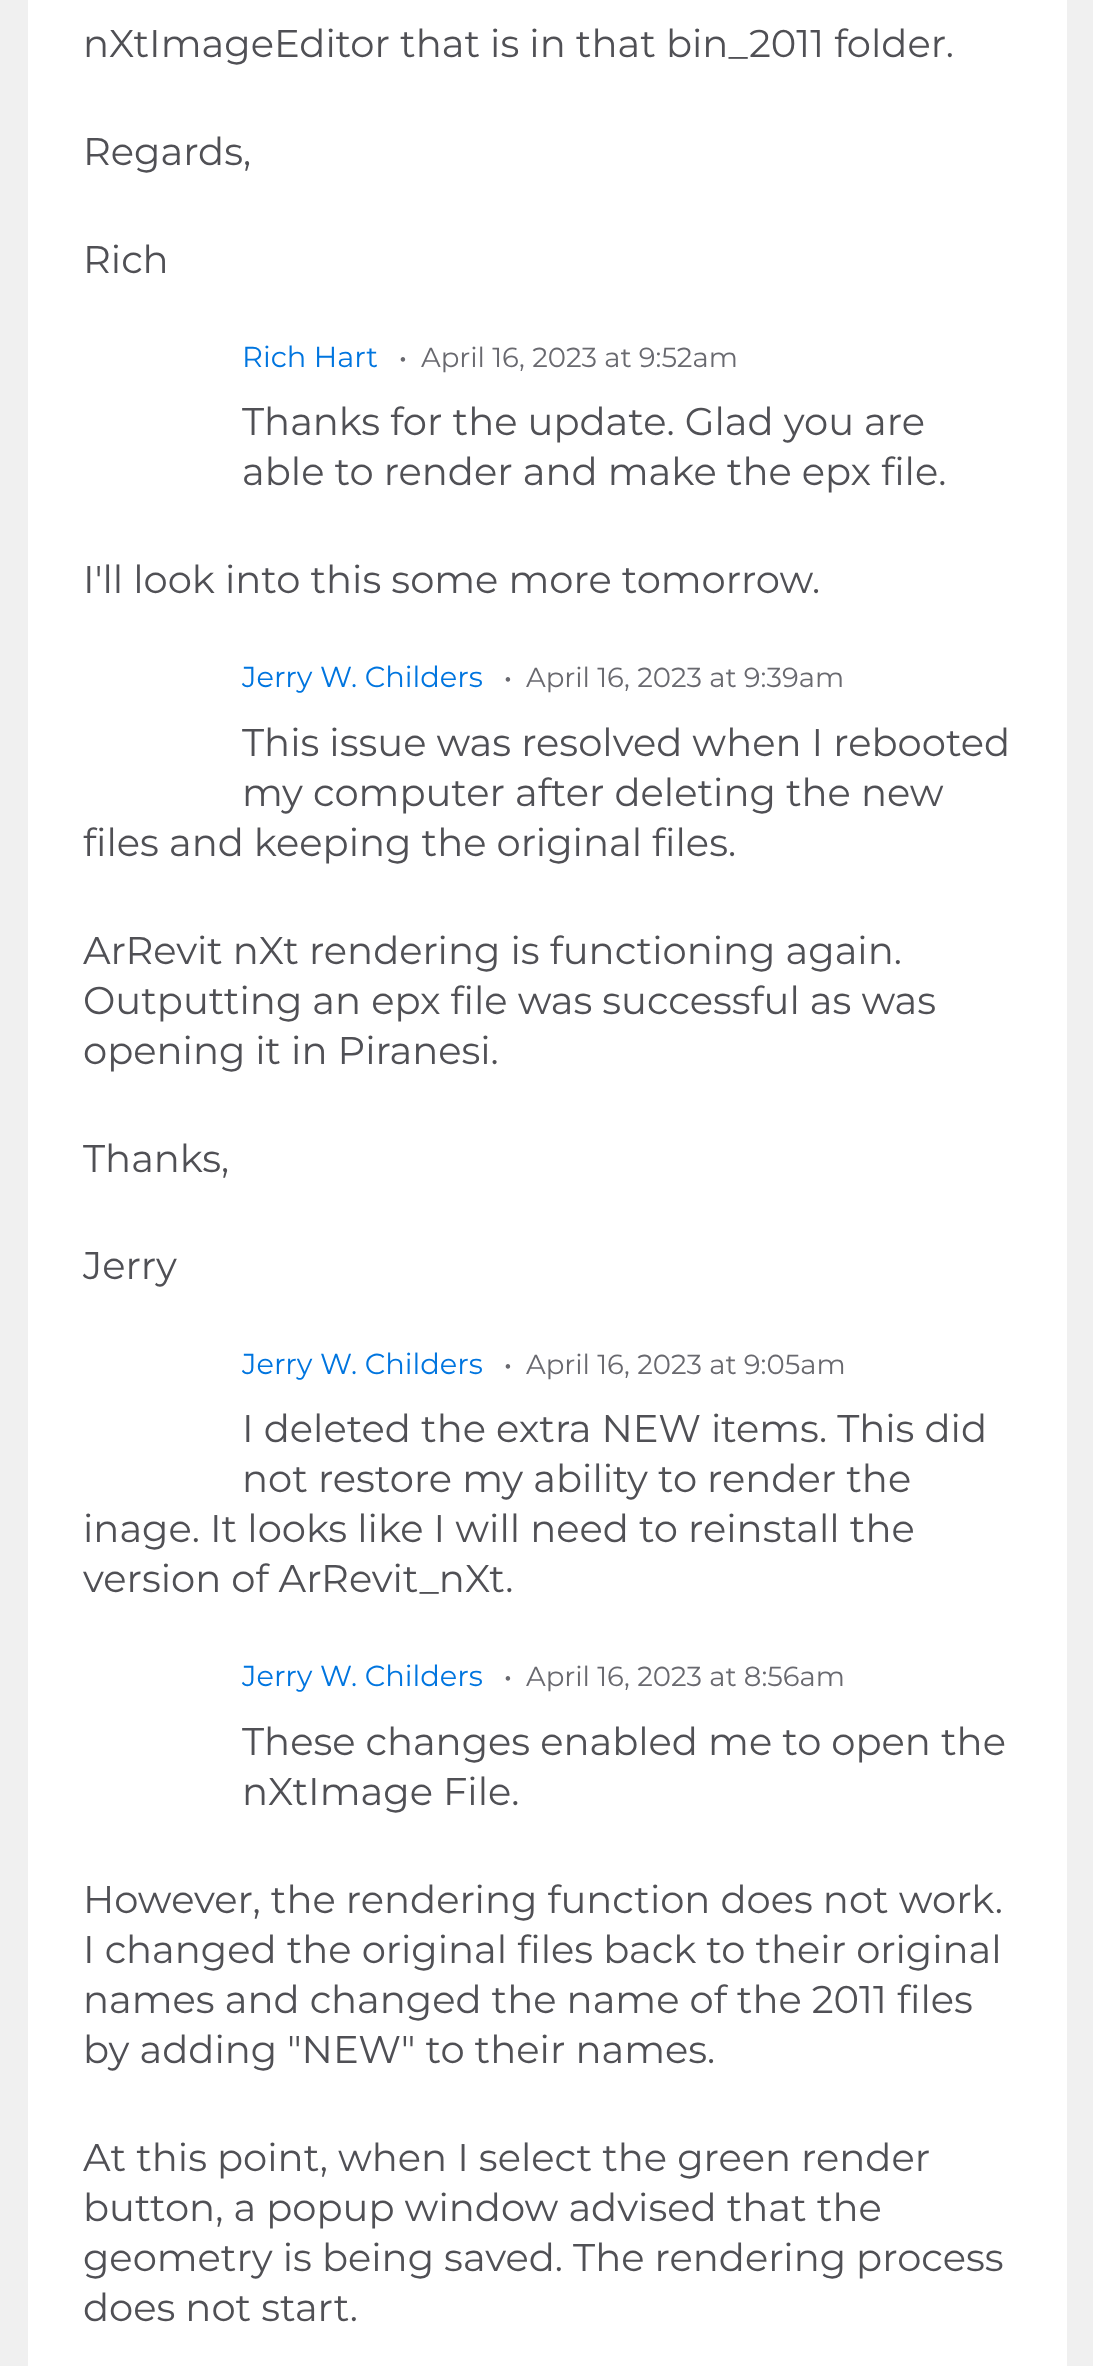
async function draw(canvas) {
  canvas.width = 1093;
  canvas.height = 2366;
  const ctx = canvas.getContext('2d');
  ctx.miterLimit = 4;
  ctx.fontKerning = 'normal';
  function label(s, x, y, font, color) {
    ctx.font = font;
    ctx.fillStyle = color;
    ctx.fillText(s, x, y);
  }
  function rect(x, y, w, h, color) {
    ctx.fillStyle = color;
    ctx.fillRect(x, y, w, h);
  }

  rect(0, 0, 1093, 2366, '#f0f0f0');
  rect(28, 0, 1039, 2366, '#fff');
  label('nXtImageEditor that is in that bin_2011 folder.', 83, 57, '100 38.5px Montserrat', '#505055');
  label('Regards,', 83, 165, '100 38.5px Montserrat', '#505055');
  label('Rich', 83, 273, '100 38.5px Montserrat', '#505055');
  label('Rich Hart', 242, 367, '100 28.9px Montserrat', '#0075df');
  label('·', 399, 367, '600 27.5px Montserrat', '#69696f');
  label('April 16, 2023 at 9:52am', 421, 367, '100 27.5px Montserrat', '#69696f');
  label('Thanks for the update. Glad you are', 242, 435, '100 38.5px Montserrat', '#505055');
  label('able to render and make the epx file.', 242, 485, '100 38.5px Montserrat', '#505055');
  label('I\'ll look into this some more tomorrow.', 83, 593, '100 38.5px Montserrat', '#505055');
  label('Jerry W. Childers', 242, 687, '100 28.9px Montserrat', '#0075df');
  label('·', 504, 687, '600 27.5px Montserrat', '#69696f');
  label('April 16, 2023 at 9:39am', 526, 687, '100 27.5px Montserrat', '#69696f');
  label('This issue was resolved when I rebooted', 242, 756, '100 38.5px Montserrat', '#505055');
  label('my computer after deleting the new', 242, 806, '100 38.5px Montserrat', '#505055');
  label('files and keeping the original files.', 83, 856, '100 38.5px Montserrat', '#505055');
  label('ArRevit nXt rendering is functioning again.', 83, 964, '100 38.5px Montserrat', '#505055');
  label('Outputting an epx file was successful as was', 83, 1014, '100 38.5px Montserrat', '#505055');
  label('opening it in Piranesi.', 83, 1064, '100 38.5px Montserrat', '#505055');
  ctx.save();
  ctx.beginPath();
  ctx.rect(83, 655, 929, 651);
  ctx.clip();
  label('Thanks,', 83, 1172, '100 38.5px Montserrat', '#505055');
  ctx.restore();
  label('Jerry', 83, 1279, '100 38.5px Montserrat', '#505055');
  label('Jerry W. Childers', 242, 1374, '100 28.9px Montserrat', '#0075df');
  label('·', 504, 1374, '600 27.5px Montserrat', '#69696f');
  label('April 16, 2023 at 9:05am', 526, 1374, '100 27.5px Montserrat', '#69696f');
  label('I deleted the extra NEW items. This did', 242, 1442, '100 38.5px Montserrat', '#505055');
  label('not restore my ability to render the', 242, 1492, '100 38.5px Montserrat', '#505055');
  label('inage. It looks like I will need to reinstall the', 83, 1542, '100 38.5px Montserrat', '#505055');
  label('version of ArRevit_nXt.', 83, 1592, '100 38.5px Montserrat', '#505055');
  label('Jerry W. Childers', 242, 1686, '100 28.9px Montserrat', '#0075df');
  label('·', 504, 1686, '600 27.5px Montserrat', '#69696f');
  label('April 16, 2023 at 8:56am', 526, 1686, '100 27.5px Montserrat', '#69696f');
  label('These changes enabled me to open the', 242, 1755, '100 38.5px Montserrat', '#505055');
  label('nXtImage File.', 242, 1805, '100 38.5px Montserrat', '#505055');
  label('However, the rendering function does not work.', 83, 1913, '100 38.5px Montserrat', '#505055');
  label('I changed the original files back to their original', 83, 1963, '100 38.5px Montserrat', '#505055');
  label('names and changed the name of the 2011 files', 83, 2013, '100 38.5px Montserrat', '#505055');
  label('by adding "NEW" to their names.', 83, 2063, '100 38.5px Montserrat', '#505055');
  label('At this point, when I select the green render', 83, 2171, '100 38.5px Montserrat', '#505055');
  label('button, a popup window advised that the', 83, 2221, '100 38.5px Montserrat', '#505055');
  label('geometry is being saved. The rendering process', 83, 2271, '100 38.5px Montserrat', '#505055');
  label('does not start.', 83, 2321, '100 38.5px Montserrat', '#505055');
}

draw(document.querySelector('canvas'));
